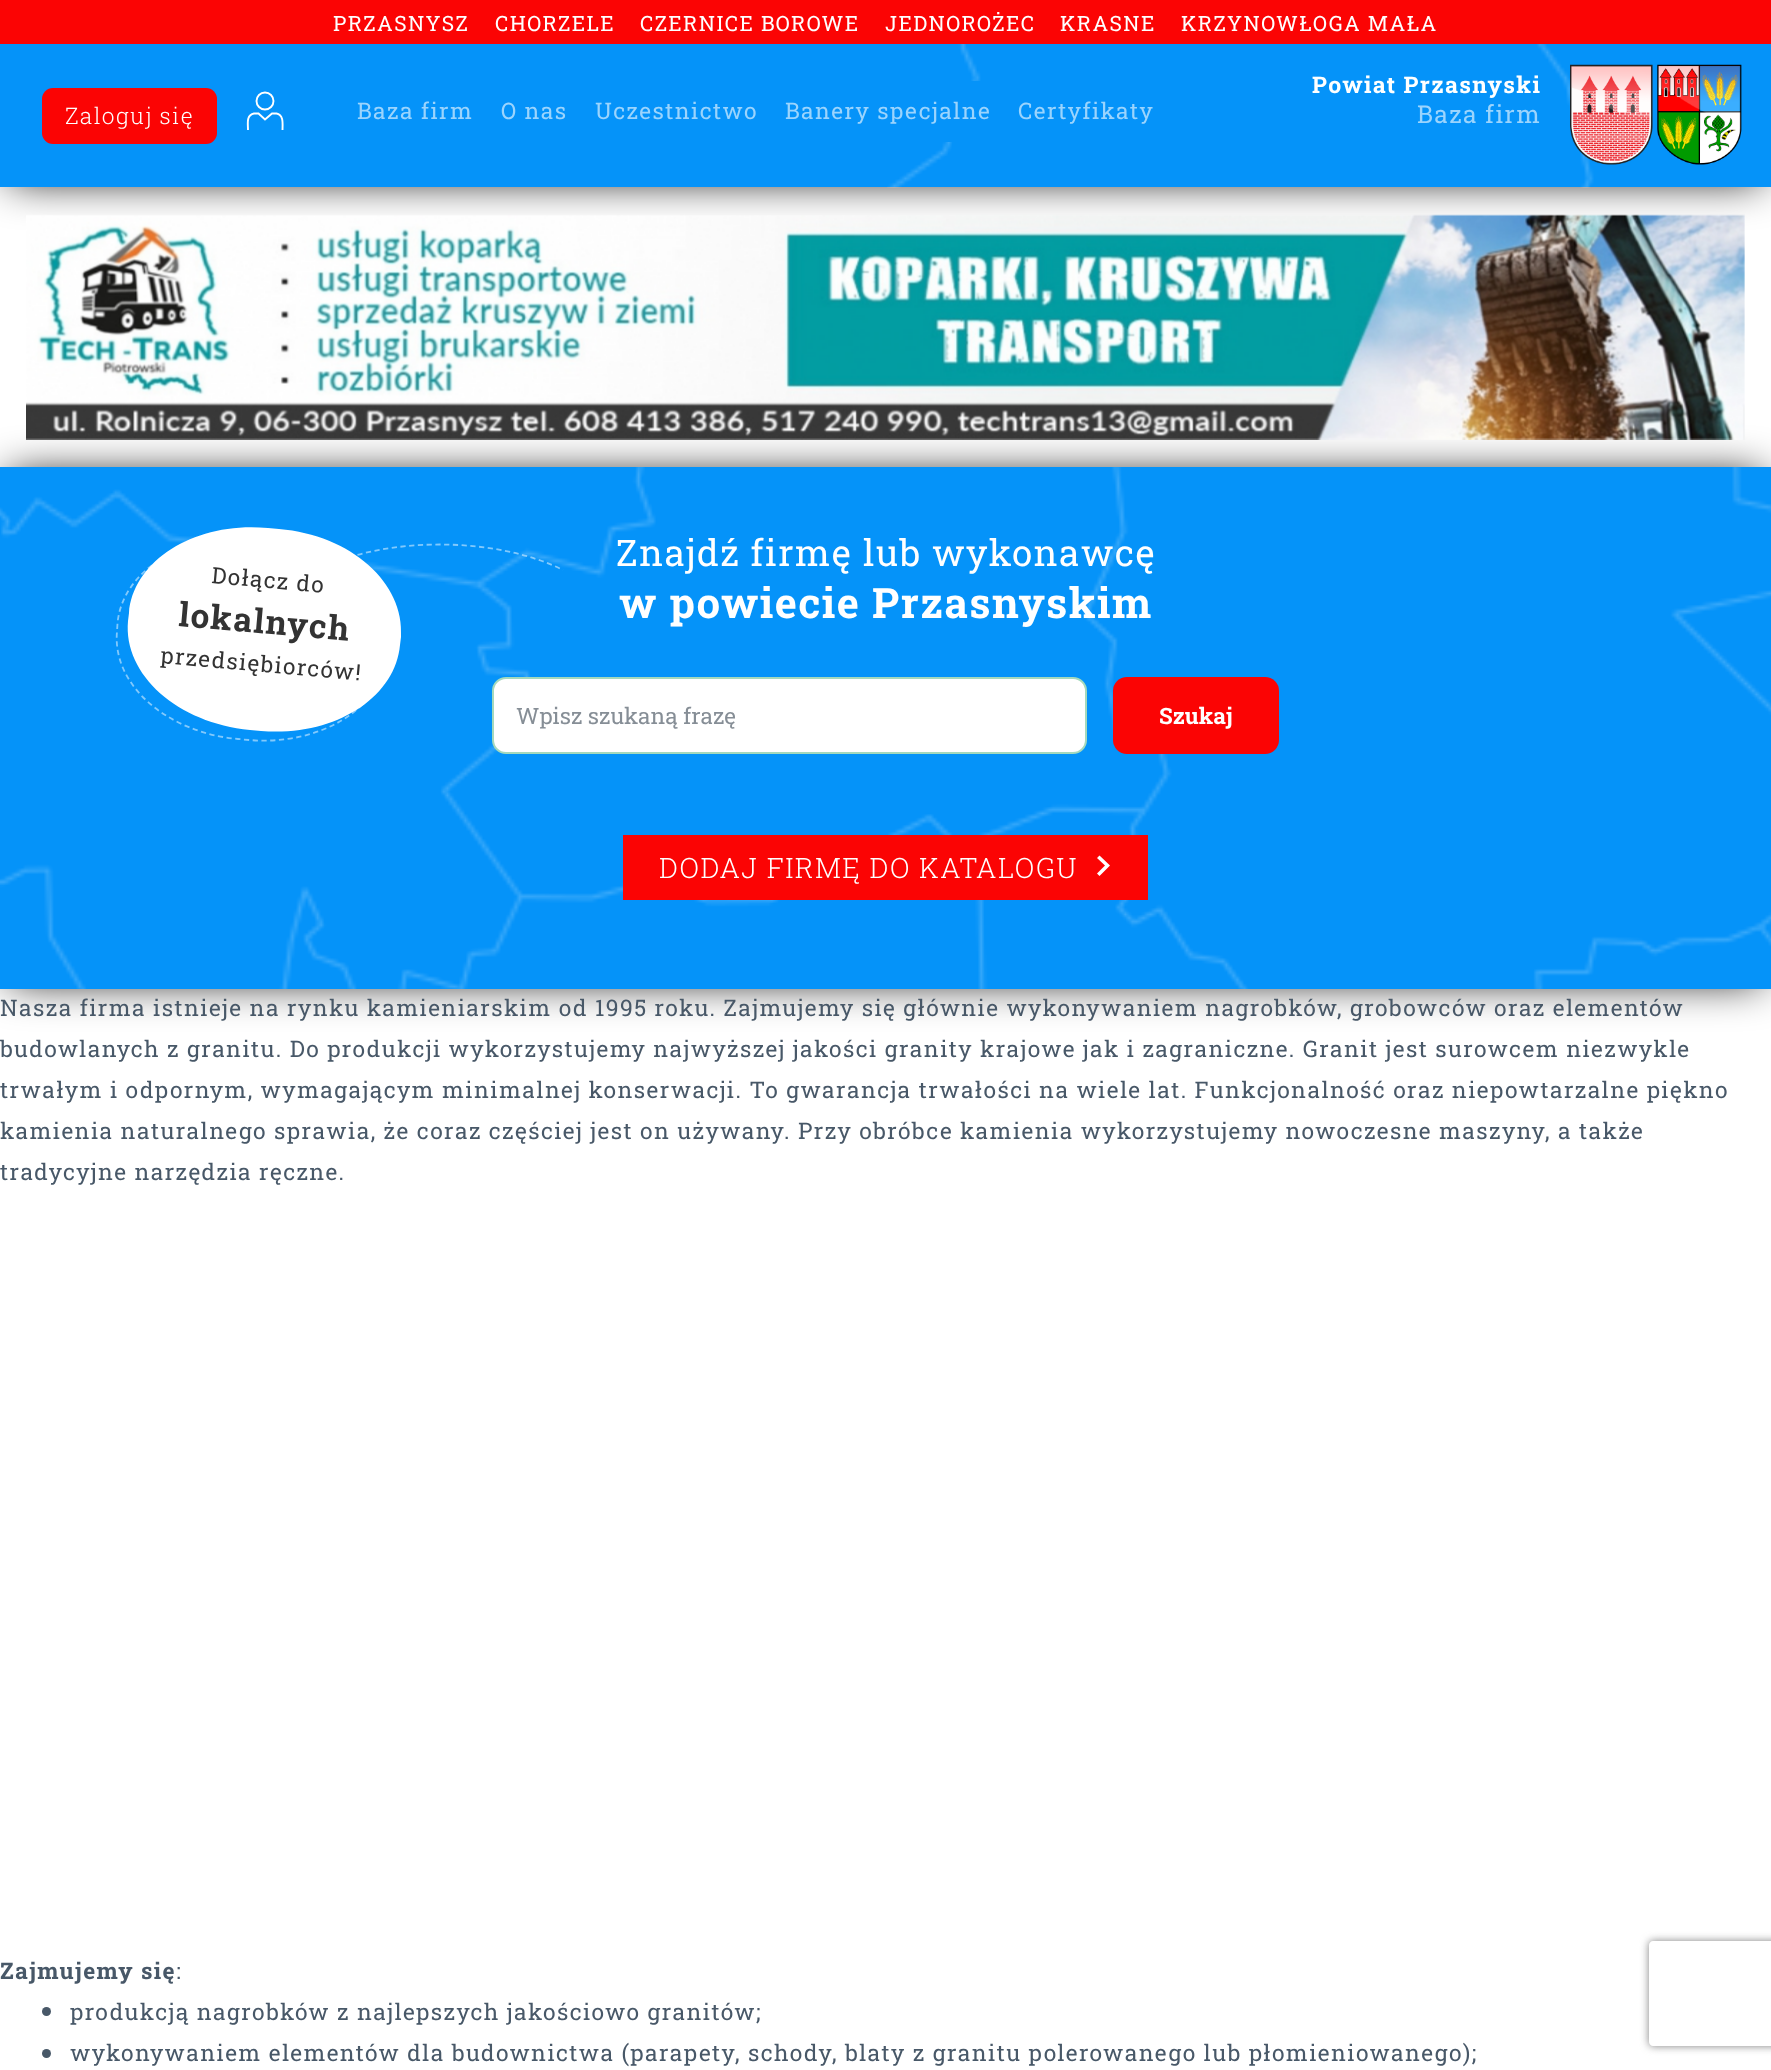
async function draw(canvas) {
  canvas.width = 1771;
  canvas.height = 2070;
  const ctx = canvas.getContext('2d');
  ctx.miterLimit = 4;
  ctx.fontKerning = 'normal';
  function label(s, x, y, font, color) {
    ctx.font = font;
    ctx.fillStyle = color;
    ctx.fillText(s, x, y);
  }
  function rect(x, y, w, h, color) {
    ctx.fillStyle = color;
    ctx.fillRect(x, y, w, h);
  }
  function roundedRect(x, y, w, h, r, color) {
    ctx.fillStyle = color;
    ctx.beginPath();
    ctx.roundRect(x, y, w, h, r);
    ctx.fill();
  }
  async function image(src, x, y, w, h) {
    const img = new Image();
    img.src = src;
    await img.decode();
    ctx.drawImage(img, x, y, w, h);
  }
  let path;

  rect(0, 0, 1771, 2070, '#fff');
  ctx.fillStyle = '#000';
  ctx.filter = 'blur(22px)';
  ctx.beginPath();
  ctx.rect(9, 53, 1753, 126);
  ctx.fill();
  ctx.filter = 'none';
  rect(0, 0, 1771, 44, '#fb0404');
  ctx.letterSpacing = '1.4px';
  label('PRZASNYSZ', 333, 31, '21px Roboto Slab', '#fff');
  label('CHORZELE', 495, 31, '21px Roboto Slab', '#fff');
  label('CZERNICE BOROWE', 640, 31, '21px Roboto Slab', '#fff');
  label('JEDNOROŻEC', 885, 31, '21px Roboto Slab', '#fff');
  label('KRASNE', 1060, 31, '21px Roboto Slab', '#fff');
  label('KRZYNOWŁOGA MAŁA', 1181, 31, '21px Roboto Slab', '#fff');
  rect(0, 44, 1771, 143, '#0593f9');
  await image('assets/img1.png', 887, 44, 707, 144);
  roundedRect(42, 88, 175, 56, 11, '#fb0404');
  label('Zaloguj się', 65, 124, '300 22.75px Roboto Slab', '#fff');
  ctx.beginPath();
  ctx.arc(265, 101, 8.5, 0, 2 * Math.PI);
  ctx.strokeStyle = '#fff';
  ctx.lineWidth = 1.9;
  ctx.stroke();
  path = new Path2D('M248 130C248 124 246 115 254 113.5H258.5L265 119.5L272 113.5H276.5C284 115 282.5 124 282.5 130');
  ctx.stroke(path);
  rect(943, 81, 38, 61, '#0593f9');
  label('Baza firm', 357, 119, '22.75px Roboto Slab', '#9bd4fd');
  label('O nas', 501, 119, '22.75px Roboto Slab', '#9bd4fd');
  label('Uczestnictwo', 595, 119, '22.75px Roboto Slab', '#9bd4fd');
  label('Banery specjalne', 785, 119, '22.75px Roboto Slab', '#9bd4fd');
  label('Certyfikaty', 1018, 119, '22.75px Roboto Slab', '#9bd4fd');
  label('Powiat Przasnyski', 1312, 93, 'bold 23px Roboto Slab', '#fff');
  label('Baza firm', 1417, 123, '24.5px Roboto Slab', '#9bd4fd');
  await image('assets/img2.png', 1570, 64, 83, 101);
  await image('assets/img3.png', 1657, 64, 85, 101);
  ctx.fillStyle = '#000';
  ctx.filter = 'blur(22px)';
  ctx.beginPath();
  ctx.rect(9, 476, 1753, 504);
  ctx.fill();
  ctx.filter = 'none';
  await image('assets/img4.png', 26, 214, 1719, 226);
  rect(0, 467, 1771, 522, '#0593f9');
  await image('assets/img5.png', 0, 467, 1771, 522);
  ctx.fillStyle = '#fff';
  path = new Path2D('M268 528L279 529C351 535 405 583 401 637L400 645C395 699 333 737 261 731L250 730C178 723 123 675 128 621L129 613C133 560 196 521 268 528Z');
  ctx.fill(path);
  ctx.font = '22.5px Roboto Slab';
  ctx.fillStyle = '#333';
  ctx.save();
  ctx.translate(211, 583);
  ctx.rotate(5 * Math.PI / 180);
  ctx.fillText('Dołącz do', 0, 0);
  ctx.restore();
  ctx.font = 'bold 33.5px Roboto Slab';
  ctx.save();
  ctx.translate(178, 626);
  ctx.rotate(5 * Math.PI / 180);
  ctx.fillText('lokalnych', 0, 0);
  ctx.restore();
  ctx.font = '22.5px Roboto Slab';
  ctx.save();
  ctx.translate(160, 663);
  ctx.rotate(5 * Math.PI / 180);
  ctx.fillText('przedsiębiorców!', 0, 0);
  ctx.restore();
  path = new Path2D('M255.5 539L266.5 539.5C338 546 392 594 387.5 647L387 655C382 708 320.5 746 249 740L238 739C166.5 732.5 112 684.5 117 631.5L117.5 623.5C122 570.5 184 532.5 255.5 539Z');
  ctx.strokeStyle = '#ffffff80';
  ctx.lineWidth = 1.8;
  ctx.setLineDash([5.25, 3.5]);
  ctx.stroke(path);
  path = new Path2D('M316.5 570C385 536 494.5 536 563 570');
  ctx.stroke(path);
  label('Znajdź firmę lub wykonawcę', 616, 566, '36.75px Roboto Slab', '#fff');
  label('w powiecie Przasnyskim', 619, 618, 'bold 42px Roboto Slab', '#fff');
  ctx.beginPath();
  ctx.roundRect(493, 678, 593, 75, 13);
  ctx.fill();
  ctx.strokeStyle = '#a4d9bd';
  ctx.lineWidth = 2;
  ctx.setLineDash([]);
  ctx.stroke();
  ctx.letterSpacing = '0px';
  label('Wpisz szukaną frazę', 516, 724, '22.5px Roboto Slab', '#868e96');
  roundedRect(1113, 677, 166, 77, 14, '#fb0404');
  label('Szukaj', 1159, 724, 'bold 22.5px Roboto Slab', '#fff');
  rect(623, 835, 525, 65, '#fb0404');
  ctx.letterSpacing = '1.4px';
  label('DODAJ FIRMĘ DO KATALOGU', 659, 878, '300 28px Roboto Slab', '#fff');
  path = new Path2D('M1110 865.5L1099.5 876L1097 873.5L1105 865.5L1097 858L1099.5 855.5Z');
  ctx.fill(path, 'evenodd');
  label('Nasza firma istnieje na rynku kamieniarskim od 1995 roku. Zajmujemy się głównie wykonywaniem nagrobków, grobowców oraz elementów', 0, 1016, '22.75px Roboto Slab', '#485868');
  label('budowlanych z granitu. Do produkcji wykorzystujemy najwyższej jakości granity krajowe jak i zagraniczne. Granit jest surowcem niezwykle', 0, 1057, '22.75px Roboto Slab', '#485868');
  label('trwałym i odpornym, wymagającym minimalnej konserwacji. To gwarancja trwałości na wiele lat. Funkcjonalność oraz niepowtarzalne piękno', 0, 1098, '22.75px Roboto Slab', '#485868');
  label('kamienia naturalnego sprawia, że coraz częściej jest on używany. Przy obróbce kamienia wykorzystujemy nowoczesne maszyny, a także', 0, 1139, '22.75px Roboto Slab', '#485868');
  label('tradycyjne narzędzia ręczne.', 0, 1180, '22.75px Roboto Slab', '#485868');
  label('Zajmujemy się', 0, 1979, 'bold 22.75px Roboto Slab', '#485868');
  label(':', 176, 1979, '22.75px Roboto Slab', '#485868');
  ctx.beginPath();
  ctx.arc(46.5, 2011.5, 4.5, 0, 2 * Math.PI);
  ctx.fill();
  label('produkcją nagrobków z najlepszych jakościowo granitów;', 70, 2020, '22.75px Roboto Slab', '#485868');
  ctx.beginPath();
  ctx.arc(46.5, 2053.5, 4.5, 0, 2 * Math.PI);
  ctx.fill();
  label('wykonywaniem elementów dla budownictwa (parapety, schody, blaty z granitu polerowanego lub płomieniowanego);', 70, 2061, '22.75px Roboto Slab', '#485868');
  ctx.save();
  path = new Path2D('M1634 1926H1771V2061H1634ZM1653 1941H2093C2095 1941 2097 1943 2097 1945V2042C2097 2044 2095 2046 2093 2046H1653C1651 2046 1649 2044 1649 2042V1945C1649 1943 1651 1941 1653 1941Z');
  ctx.clip(path, 'evenodd');
  ctx.fillStyle = '#808080';
  ctx.filter = 'blur(4.5px)';
  ctx.beginPath();
  ctx.roundRect(1649, 1941, 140, 105, 4);
  ctx.fill();
  ctx.filter = 'none';
  ctx.restore();
}

draw(document.querySelector('canvas'));
